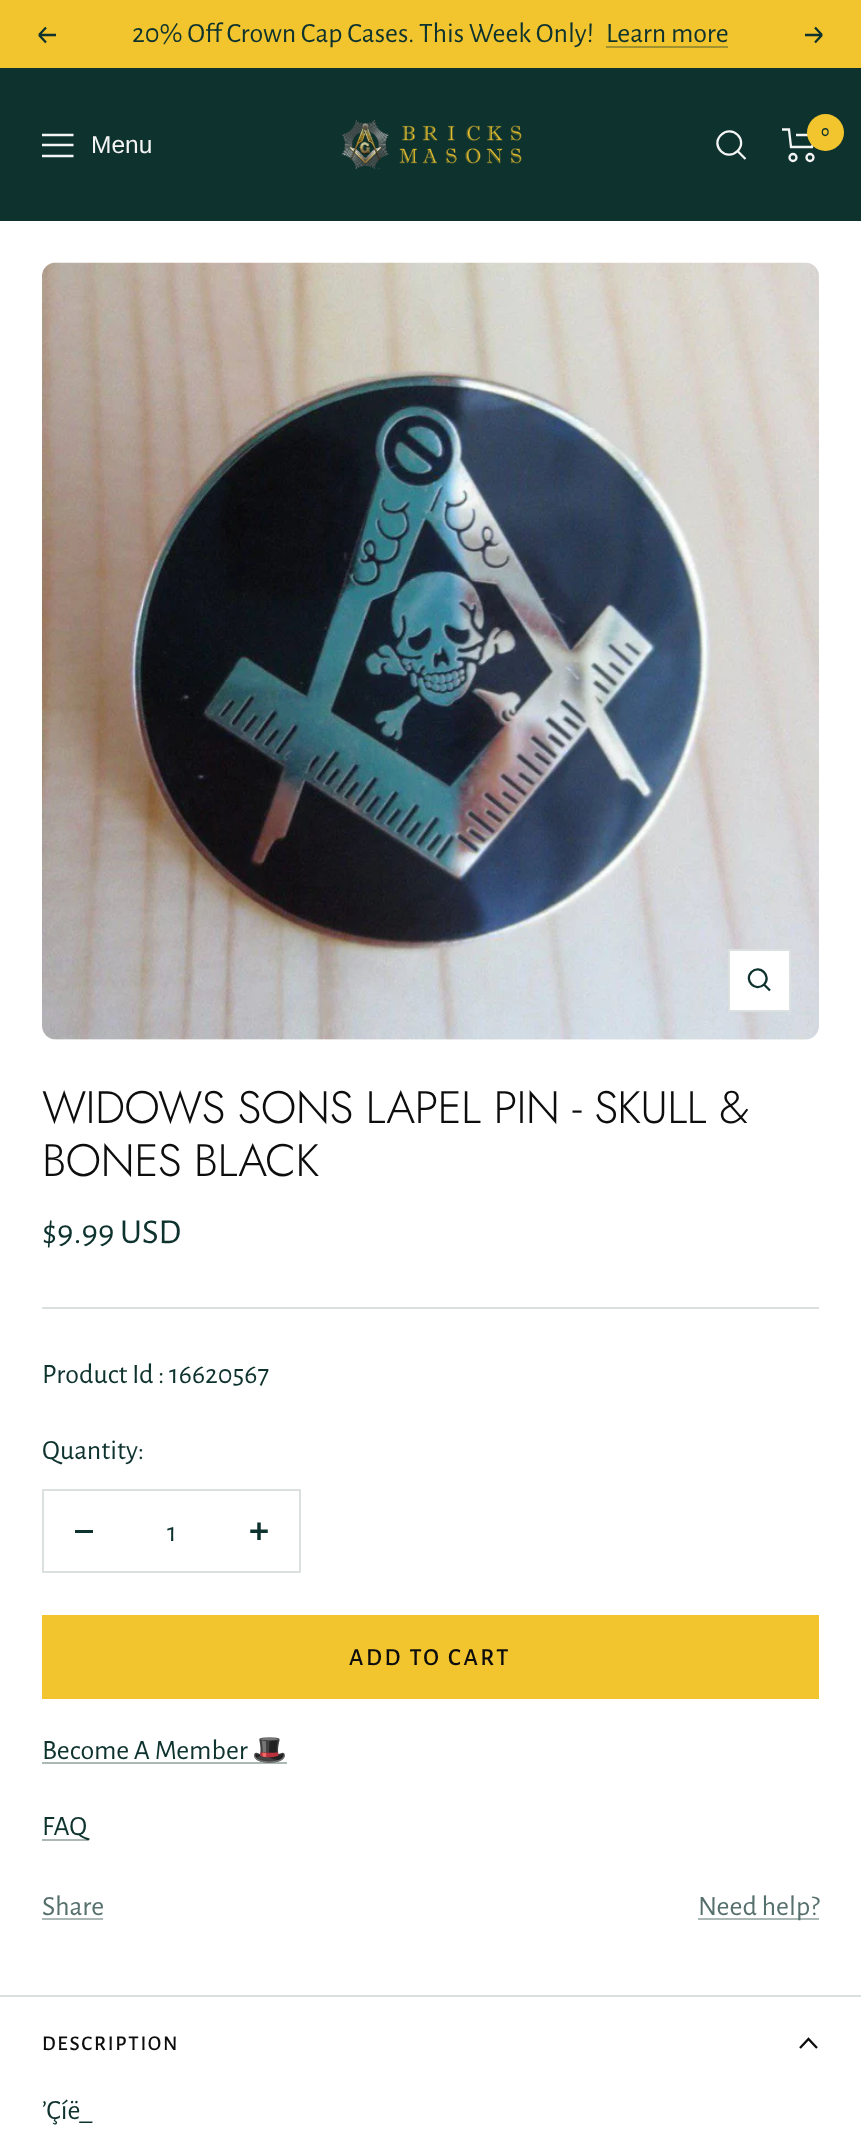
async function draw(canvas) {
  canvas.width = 861;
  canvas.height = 2133;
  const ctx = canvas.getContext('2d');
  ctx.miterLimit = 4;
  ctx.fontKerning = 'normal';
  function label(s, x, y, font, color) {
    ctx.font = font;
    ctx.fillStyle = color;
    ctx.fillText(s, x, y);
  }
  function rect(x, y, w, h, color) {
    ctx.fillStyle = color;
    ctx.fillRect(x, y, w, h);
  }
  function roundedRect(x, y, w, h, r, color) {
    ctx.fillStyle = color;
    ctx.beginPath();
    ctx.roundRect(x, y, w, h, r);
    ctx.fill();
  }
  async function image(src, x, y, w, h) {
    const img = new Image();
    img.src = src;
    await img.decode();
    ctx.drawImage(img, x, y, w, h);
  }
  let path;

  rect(0, 0, 861, 2133, '#fff');
  rect(0, 0, 861, 68, '#f2c52f');
  path = new Path2D('M56 35H39M39 35L46 42.5M39 35L46 27.5');
  ctx.strokeStyle = '#0e332e';
  ctx.lineWidth = 2.3;
  ctx.stroke(path);
  label('20% Off Crown Cap Cases. This Week Only!', 132, 42, '28px Alegreya Sans', '#0e332e');
  label('Learn more', 606, 42, '28px Alegreya Sans', '#0e332e');
  rect(606, 46, 122, 2, '#a2922f');
  path = new Path2D('M805 35H822M822 35L815 42.5M822 35L815 27.5');
  ctx.stroke(path);
  rect(0, 68, 861, 153, '#0e332e');
  await image('assets/img1.png', 341, 119, 181, 51);
  path = new Path2D('M737.5 151C748.5 140 732 124 721 135C710 146 726.5 162 737.5 151ZM737.5 151L745.5 159');
  ctx.strokeStyle = '#f5f5f5';
  ctx.stroke(path);
  path = new Path2D('M782 129.5H789L791 147H812L815.5 135H796');
  ctx.stroke(path);
  ctx.beginPath();
  ctx.arc(793, 157.5, 3.5, 0, 2 * Math.PI);
  ctx.stroke();
  ctx.beginPath();
  ctx.arc(810, 157.5, 3.5, 0, 2 * Math.PI);
  ctx.stroke();
  ctx.fillStyle = '#f2c52f';
  ctx.beginPath();
  ctx.arc(825.5, 132.5, 18.5, 0, 2 * Math.PI);
  ctx.fill();
  label('0', 821, 136, '500 16px Alegreya Sans', '#0e332e');
  path = new Path2D('M42 135H73.5M42 156H73.5ZM42 145H73.5Z');
  ctx.stroke(path);
  label('Menu', 91, 153, '24.5px Liberation Sans', '#f5f5f5');
  roundedRect(42, 263, 777, 777, 14, '#f5f5f5');
  await image('assets/img2.png', 42, 262, 777, 778);
  ctx.fillStyle = '#fff';
  ctx.beginPath();
  ctx.rect(729, 950, 61, 61);
  ctx.fill();
  ctx.strokeStyle = '#dbe0e0';
  ctx.lineWidth = 2;
  ctx.stroke();
  path = new Path2D('M764 984.5C772 976 760 964 751.5 972C743.5 980.5 755.5 992.5 764 984.5ZM764 984.5L770 990.5');
  ctx.strokeStyle = '#0e332e';
  ctx.lineWidth = 2.3;
  ctx.stroke(path);
  rect(42, 1307, 777, 2, '#dbe0e0');
  ctx.letterSpacing = '-0.7px';
  label('WIDOWS SONS LAPEL PIN - SKULL &', 42, 1123, '300 45.5px Jost', '#0d0d0d');
  label('BONES BLACK', 42, 1176, '300 45.5px Jost', '#0d0d0d');
  ctx.letterSpacing = '0px';
  label('$9.99 USD', 42, 1243, '35px Alegreya Sans', '#0e332e');
  label('Product Id : 16620567', 42, 1383, '28px Alegreya Sans', '#0e332e');
  label('Quantity:', 42, 1459, '28px Alegreya Sans', '#0e332e');
  ctx.strokeStyle = '#dbe0e0';
  ctx.lineWidth = 2;
  ctx.strokeRect(43, 1490, 257, 82);
  rect(75, 1530, 18, 3, '#0e332e');
  label('1', 167, 1541, '28px Alegreya Sans', '#0e332e');
  await image('assets/img3.png', 250, 1522, 18, 18);
  rect(42, 1615, 777, 84, '#f2c52f');
  ctx.letterSpacing = '2.6px';
  label('ADD TO CART', 349, 1665, '500 24.5px Alegreya Sans', '#0d0d0d');
  ctx.letterSpacing = '0px';
  label('Become A Member', 42, 1759, '28px Alegreya Sans', '#0e332e');
  rect(42, 1762, 245, 2, '#abb8b6');
  label('🎩', 252, 1759, '28px Noto Color Emoji', '#0e332e');
  rect(42, 1839, 46, 2, '#abb8b6');
  label('FAQ', 42, 1835, '28px Alegreya Sans', '#0e332e');
  label('Share', 42, 1915, '28px Alegreya Sans', '#56706d');
  rect(42, 1918, 61, 2, '#abb8b6');
  rect(698, 1918, 121, 2, '#abb8b6');
  label('Need help?', 698, 1915, '28px Alegreya Sans', '#56706d');
  rect(0, 1995, 861, 2, '#dbe0e0');
  ctx.letterSpacing = '1.75px';
  label('DESCRIPTION', 42, 2050, '500 21px Alegreya Sans', '#0d0d0d');
  path = new Path2D('M817 2048L808.5 2039L800 2048');
  ctx.strokeStyle = '#0d0d0d';
  ctx.lineWidth = 2.3;
  ctx.stroke(path);
  ctx.letterSpacing = '0px';
  label('’Çíë_', 42, 2119, '28px Alegreya Sans', '#0e332e');
}

draw(document.querySelector('canvas'));
